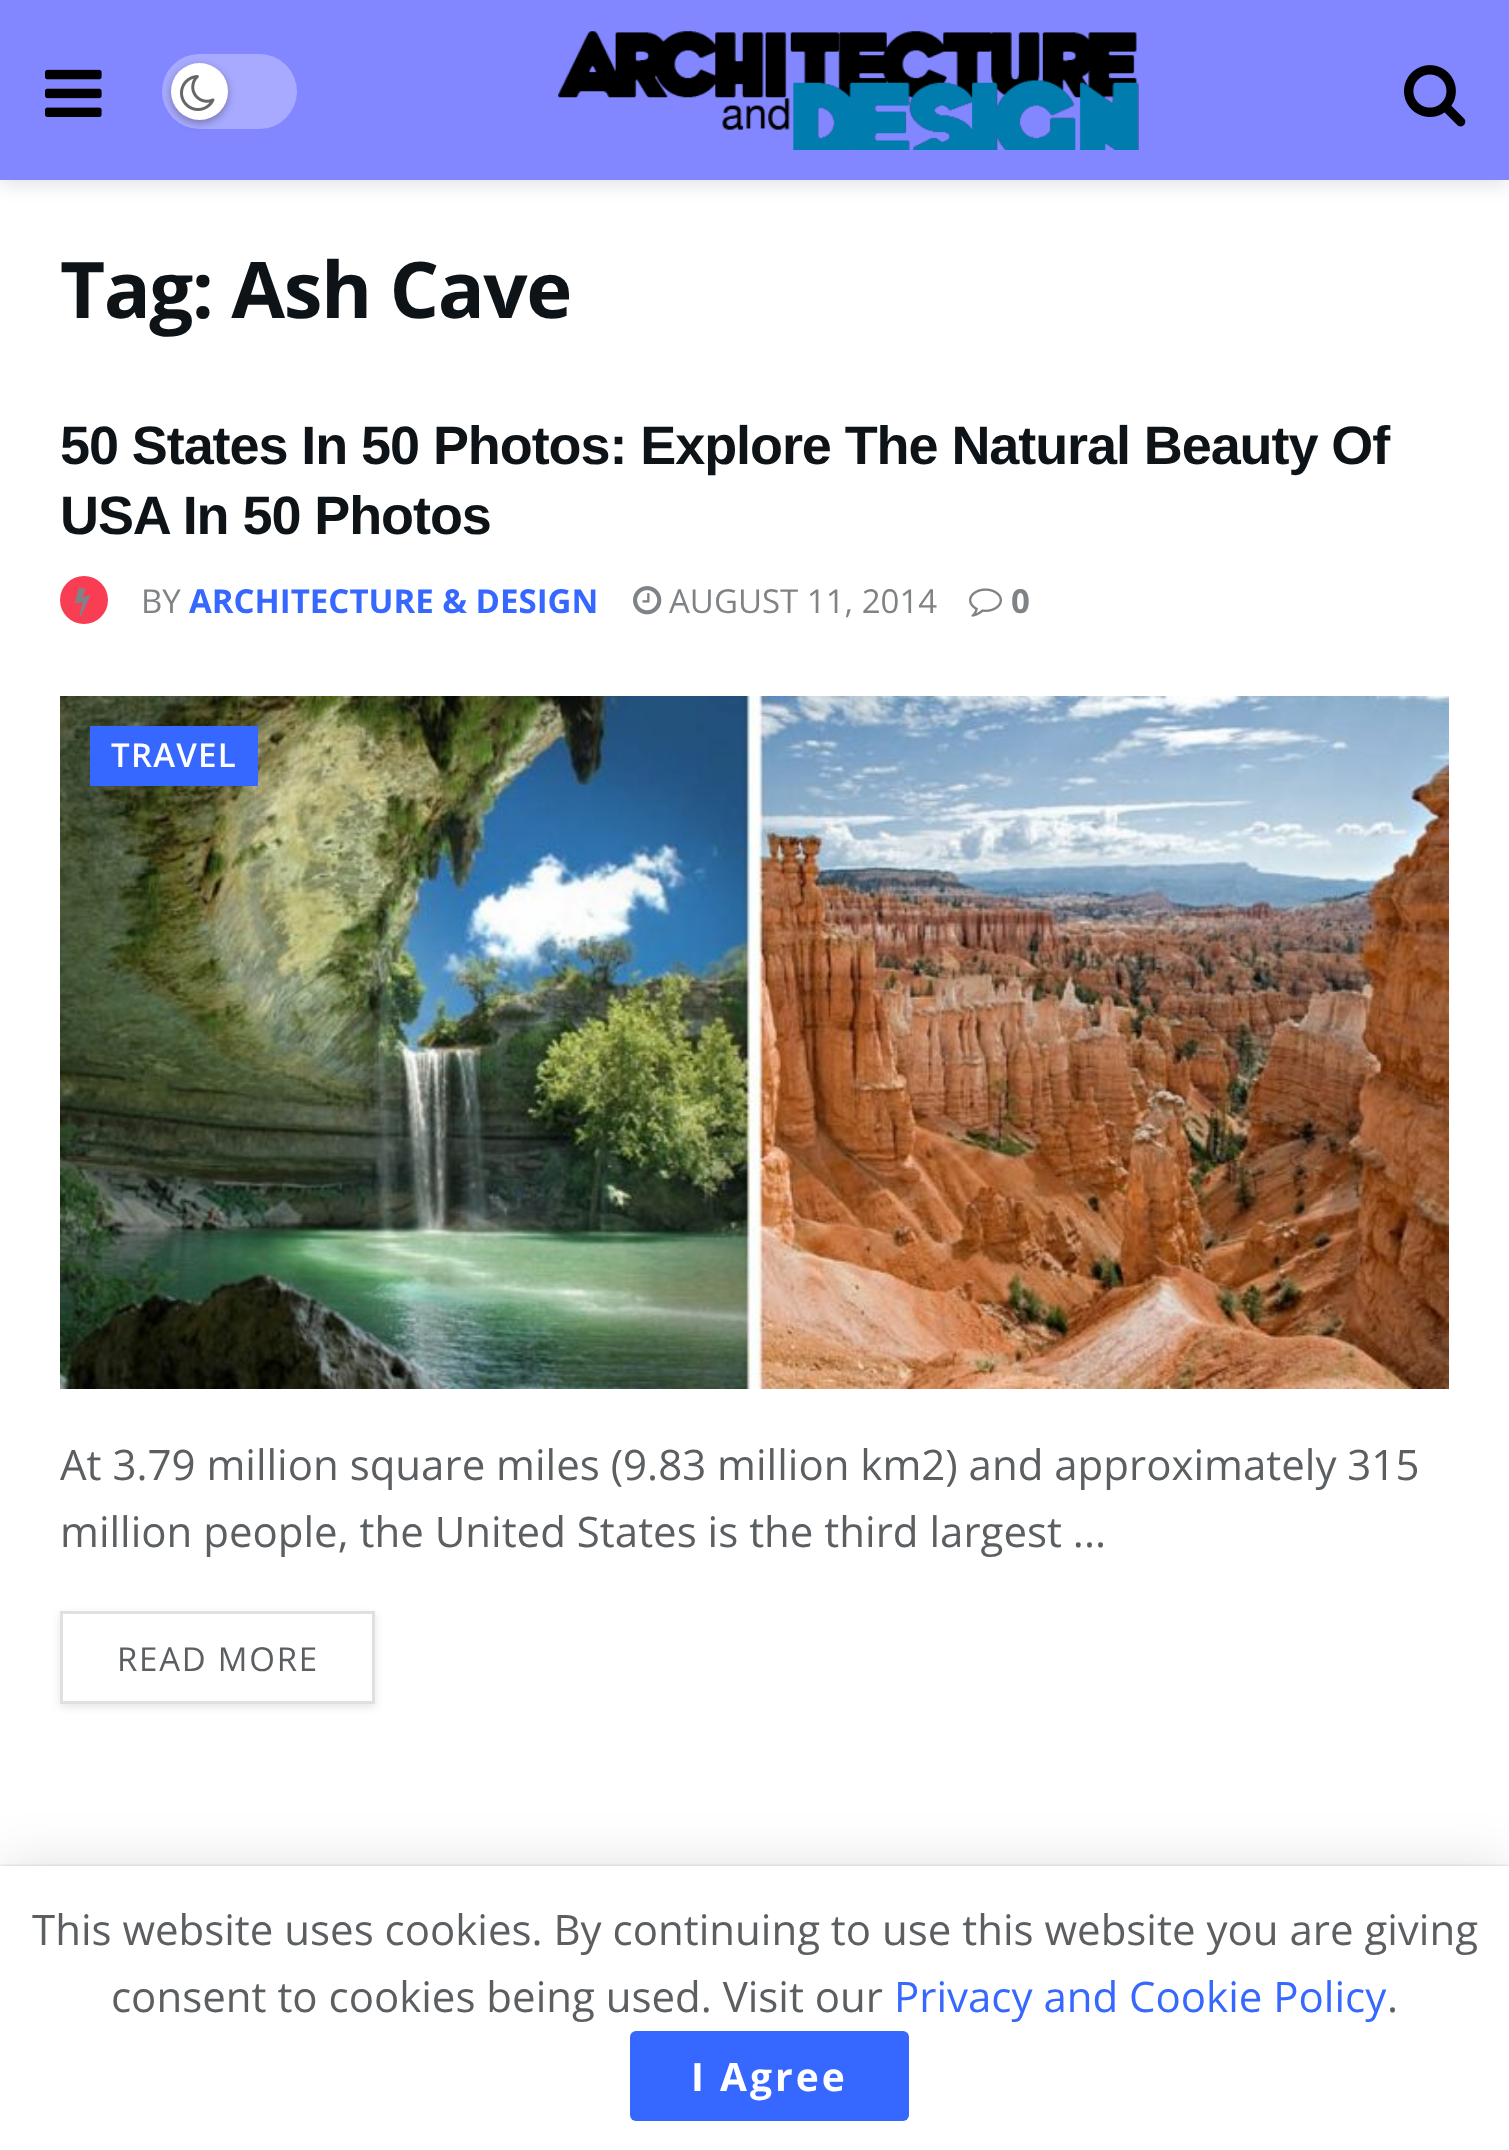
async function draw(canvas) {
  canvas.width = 1509;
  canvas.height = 2150;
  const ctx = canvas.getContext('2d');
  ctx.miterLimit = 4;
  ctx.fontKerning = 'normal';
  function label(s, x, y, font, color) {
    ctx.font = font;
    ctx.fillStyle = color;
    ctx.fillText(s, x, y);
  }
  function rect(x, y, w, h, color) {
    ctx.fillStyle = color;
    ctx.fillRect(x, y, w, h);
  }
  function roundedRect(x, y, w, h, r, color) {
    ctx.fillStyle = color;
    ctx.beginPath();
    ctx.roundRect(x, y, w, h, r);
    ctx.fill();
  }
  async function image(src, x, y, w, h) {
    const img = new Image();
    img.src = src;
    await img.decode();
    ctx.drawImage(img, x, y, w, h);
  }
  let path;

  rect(0, 0, 1509, 2150, '#fff');
  ctx.fillStyle = '#0000001a';
  ctx.filter = 'blur(9px)';
  ctx.beginPath();
  ctx.rect(0, 6, 1509, 180);
  ctx.fill();
  ctx.filter = 'none';
  rect(0, 0, 1509, 180, '#8286ff');
  await image('assets/img1.png', 45, 69, 57, 48);
  roundedRect(162, 54, 135, 75, 37.5, '#a8aaff');
  ctx.fillStyle = '#0000004d';
  ctx.filter = 'blur(4.5px)';
  ctx.beginPath();
  ctx.roundRect(171, 66, 57, 57, 28.5);
  ctx.fill();
  ctx.filter = 'none';
  ctx.fillStyle = '#fff';
  ctx.beginPath();
  ctx.arc(199.5, 91.5, 28.5, 0, 2 * Math.PI);
  ctx.fill();
  await image('assets/img2.png', 180, 75, 35, 36);
  await image('assets/img3.png', 558, 31, 581, 119);
  await image('assets/img4.png', 1404, 65, 62, 62);
  ctx.letterSpacing = '-1.5px';
  label('Tag: Ash Cave', 60, 318, 'bold 78px Open Sans', '#0d1317');
  ctx.letterSpacing = '-1.08px';
  label('50 States In 50 Photos: Explore The Natural Beauty Of', 60, 464, 'bold 54px Liberation Sans', '#0d1317');
  label('USA In 50 Photos', 60, 534, 'bold 54px Liberation Sans', '#0d1317');
  ctx.fillStyle = '#f93d53';
  ctx.beginPath();
  ctx.arc(84, 600, 24, 0, 2 * Math.PI);
  ctx.fill();
  await image('assets/img5.png', 75, 588, 15, 29);
  ctx.letterSpacing = '0px';
  label('BY', 141, 613, '33px Open Sans', '#808386');
  label('ARCHITECTURE & DESIGN', 189, 613, 'bold 33px Open Sans', '#3667ff');
  await image('assets/img6.png', 633, 586, 29, 29);
  label('AUGUST 11, 2014', 669, 613, '33px Open Sans', '#808386');
  await image('assets/img7.png', 969, 588, 33, 29);
  label('0', 1011, 613, 'bold 33px Open Sans', '#808386');
  await image('assets/img8.png', 60, 696, 1389, 693);
  rect(90, 726, 168, 60, '#3667ff');
  ctx.letterSpacing = '1.25px';
  label('TRAVEL', 111, 767, '600 33px Open Sans', '#fff');
  ctx.letterSpacing = '0px';
  label('At 3.79 million square miles (9.83 million km2) and approximately 315', 60, 1480, '42px Open Sans', '#5b5f62');
  label('million people, the United States is the third largest ...', 60, 1547, '42px Open Sans', '#5b5f62');
  ctx.save();
  path = new Path2D('M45 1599H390V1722H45ZM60 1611H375V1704H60Z');
  ctx.clip(path, 'evenodd');
  ctx.fillStyle = '#0000001a';
  ctx.filter = 'blur(4.5px)';
  ctx.beginPath();
  ctx.rect(60, 1614, 315, 93);
  ctx.fill();
  ctx.filter = 'none';
  ctx.restore();
  ctx.strokeStyle = '#e0e0e0';
  ctx.lineWidth = 3;
  ctx.strokeRect(61.5, 1612.5, 312, 90);
  ctx.letterSpacing = '1.75px';
  label('READ MORE', 117, 1671, '33px Open Sans', '#5b5f62');
  ctx.fillStyle = '#00000026';
  ctx.filter = 'blur(30px)';
  ctx.beginPath();
  ctx.rect(0, 1872, 1509, 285);
  ctx.fill();
  ctx.filter = 'none';
  ctx.fillStyle = '#00000033';
  ctx.filter = 'blur(1.5px)';
  ctx.beginPath();
  ctx.rect(0, 1866, 1509, 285);
  ctx.fill();
  ctx.filter = 'none';
  rect(0, 1866, 1509, 284, '#fff');
  ctx.letterSpacing = '0px';
  label('This website uses cookies. By continuing to use this website you are giving', 32, 1945, '42px Open Sans', '#5b5f62');
  label('consent to cookies being used. Visit our', 111, 2012, '42px Open Sans', '#5b5f62');
  label('Privacy and Cookie Policy', 894, 2012, '42px Open Sans', '#3667ff');
  label('.', 1387, 2012, '42px Open Sans', '#5b5f62');
  roundedRect(630, 2031, 279, 90, 6, '#3667ff');
  ctx.letterSpacing = '3px';
  label('I Agree', 691, 2091, 'bold 39px Open Sans', '#fff');
}

draw(document.querySelector('canvas'));
